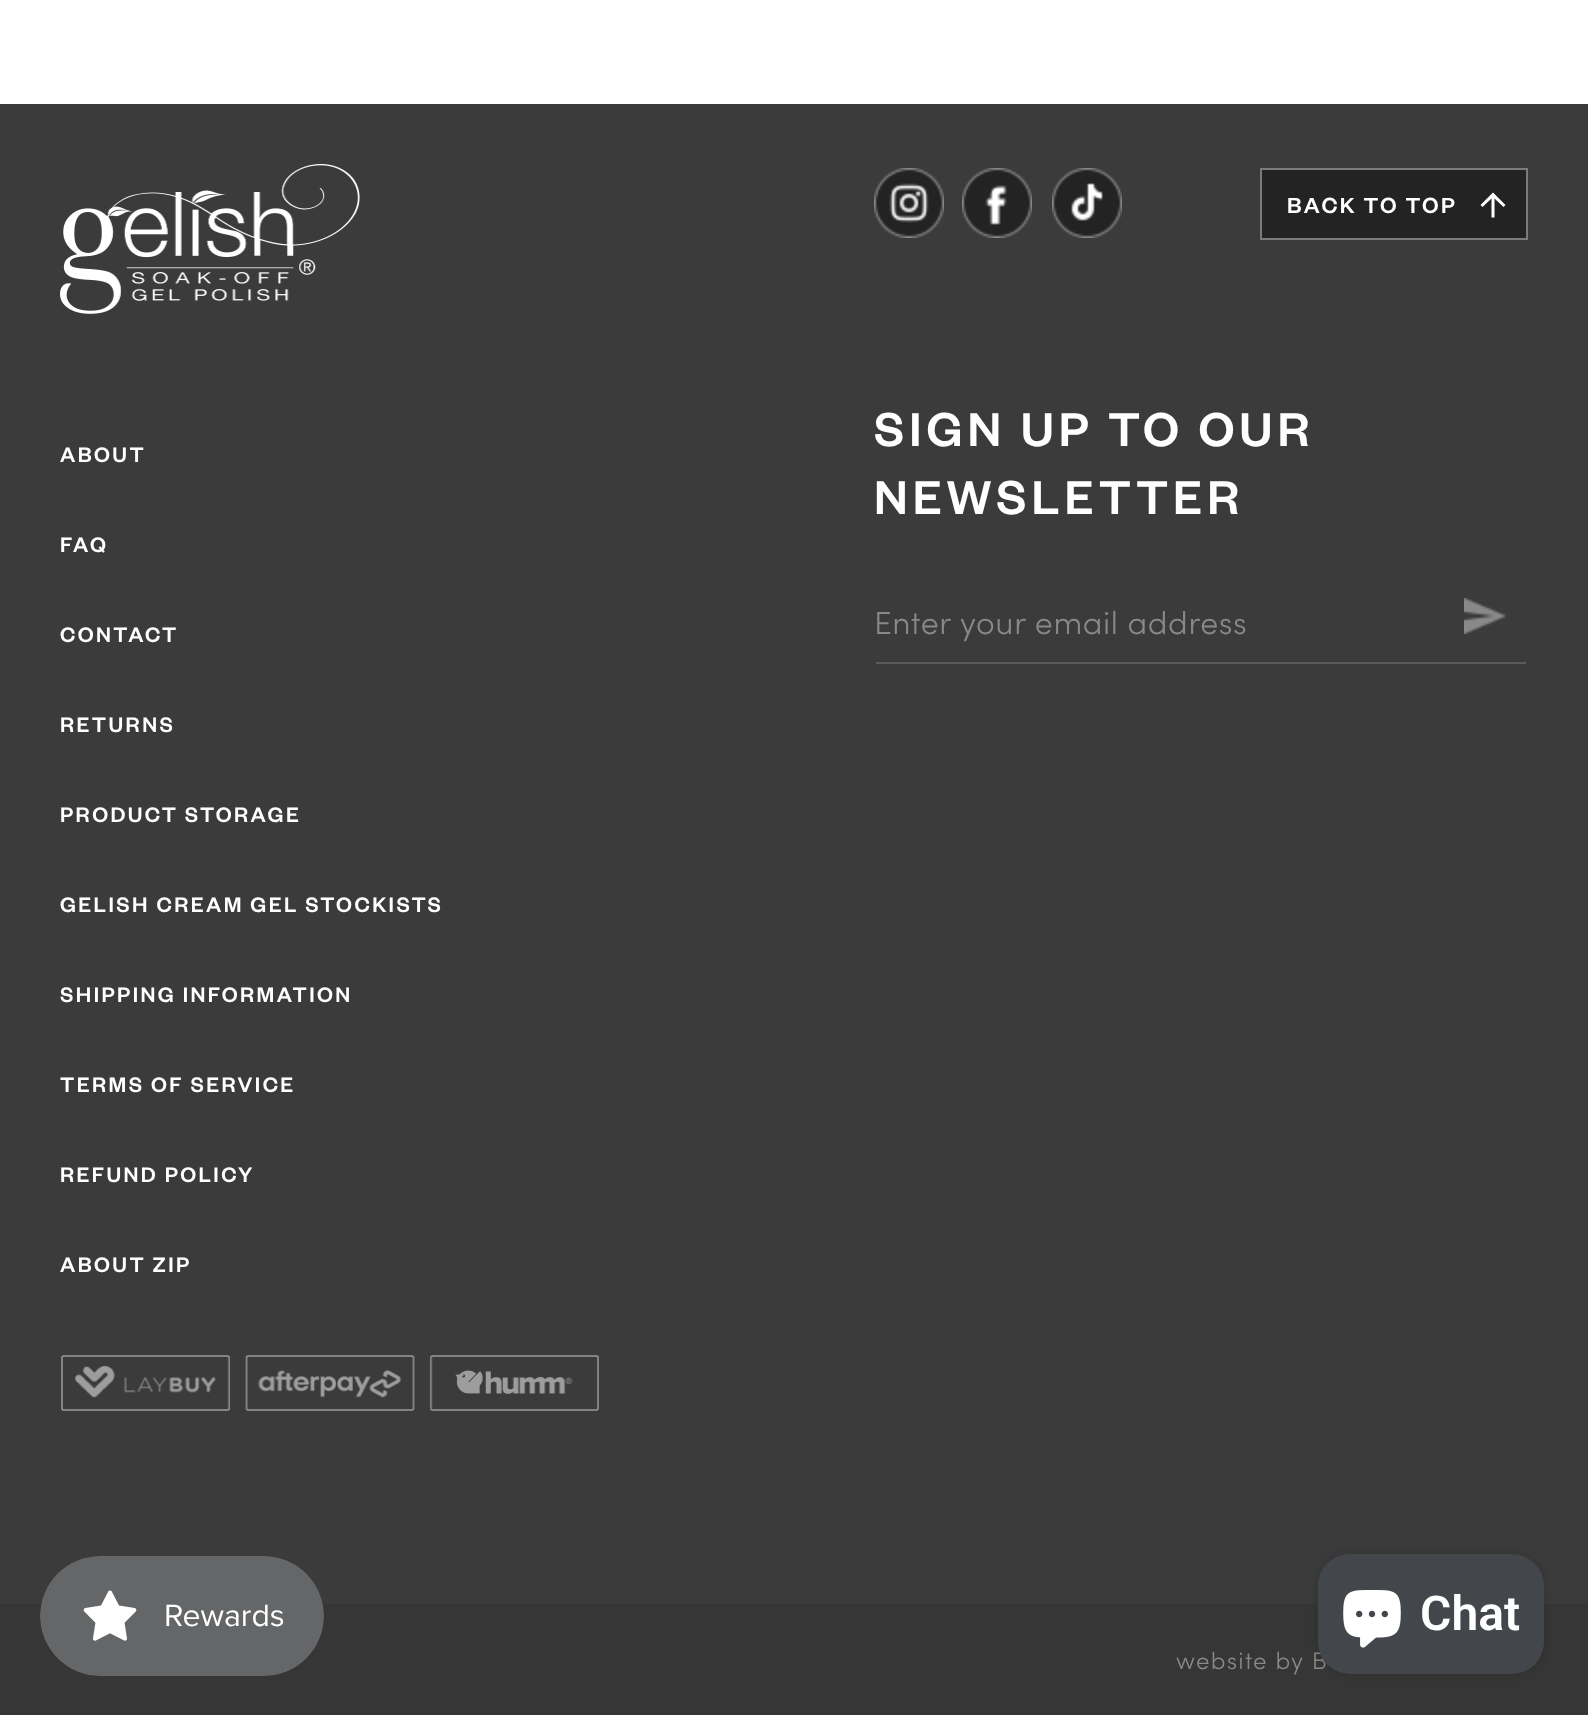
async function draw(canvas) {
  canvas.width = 1588;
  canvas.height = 1715;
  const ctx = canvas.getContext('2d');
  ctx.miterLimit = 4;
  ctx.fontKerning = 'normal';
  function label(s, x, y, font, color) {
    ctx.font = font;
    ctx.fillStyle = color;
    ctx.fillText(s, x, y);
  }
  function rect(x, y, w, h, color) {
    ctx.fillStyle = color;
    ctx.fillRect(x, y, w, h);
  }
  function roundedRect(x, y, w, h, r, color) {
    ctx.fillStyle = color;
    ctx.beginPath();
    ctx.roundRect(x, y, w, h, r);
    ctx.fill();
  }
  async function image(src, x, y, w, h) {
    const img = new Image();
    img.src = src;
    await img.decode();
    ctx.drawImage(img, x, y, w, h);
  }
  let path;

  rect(0, 0, 1588, 1715, '#fff');
  rect(0, 104, 1588, 1500, '#3b3b3b');
  await image('assets/img1.png', 60, 164, 300, 150);
  ctx.letterSpacing = '2.4px';
  label('ABOUT', 60, 462, '500 23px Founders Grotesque', '#fff');
  label('FAQ', 60, 552, '500 23px Founders Grotesque', '#fff');
  label('CONTACT', 60, 642, '500 23px Founders Grotesque', '#fff');
  label('RETURNS', 60, 732, '500 23px Founders Grotesque', '#fff');
  label('PRODUCT STORAGE', 60, 822, '500 23px Founders Grotesque', '#fff');
  label('GELISH CREAM GEL STOCKISTS', 60, 912, '500 23px Founders Grotesque', '#fff');
  label('SHIPPING INFORMATION', 60, 1002, '500 23px Founders Grotesque', '#fff');
  label('TERMS OF SERVICE', 60, 1092, '500 23px Founders Grotesque', '#fff');
  label('REFUND POLICY', 60, 1182, '500 23px Founders Grotesque', '#fff');
  label('ABOUT ZIP', 60, 1272, '500 23px Founders Grotesque', '#fff');
  await image('assets/img2.png', 61, 1355, 538, 56);
  await image('assets/img3.png', 874, 168, 70, 70);
  await image('assets/img4.png', 962, 168, 70, 70);
  await image('assets/img5.png', 1052, 168, 70, 70);
  ctx.fillStyle = '#232323';
  ctx.beginPath();
  ctx.rect(1261, 169, 266, 70);
  ctx.fill();
  ctx.strokeStyle = '#7b7b7b';
  ctx.lineWidth = 2;
  ctx.stroke();
  label('BACK TO TOP', 1287, 213, '500 24px Founders Grotesque', '#fff');
  path = new Path2D('M1480.5 205L1493 192.5L1505.5 205L1503.5 207L1494.5 198.5V217.5H1491.5V198.5L1482.5 207Z');
  ctx.fill(path);
  ctx.letterSpacing = '5px';
  label('SIGN UP TO OUR', 874, 446, '500 52px Founders Grotesque', '#fff');
  label('NEWSLETTER', 874, 514, '500 52px Founders Grotesque', '#fff');
  ctx.letterSpacing = '0.6px';
  label('Enter your email address', 874, 634, '300 32px Sofia', '#898989');
  await image('assets/img6.png', 1464, 598, 42, 36);
  rect(876, 662, 650, 2, '#5a5a5a');
  rect(0, 1604, 1588, 111, '#363636');
  ctx.letterSpacing = '1.25px';
  label('website by B', 1176, 1669, '300 24px Sofia', '#898989');
  await image('assets/img7.png', 40, 1556, 284, 120);
  ctx.fillStyle = '#00000026';
  ctx.filter = 'blur(5px)';
  ctx.beginPath();
  ctx.roundRect(1318, 1554, 226, 120, 32);
  ctx.fill();
  ctx.filter = 'none';
  roundedRect(1318, 1554, 226, 120, 32, '#43474c');
  await image('assets/img8.png', 1343, 1590, 58, 58);
  ctx.letterSpacing = '0px';
  label('Chat', 1420, 1630, '600 48px Roboto', '#fff');
}

draw(document.querySelector('canvas'));
